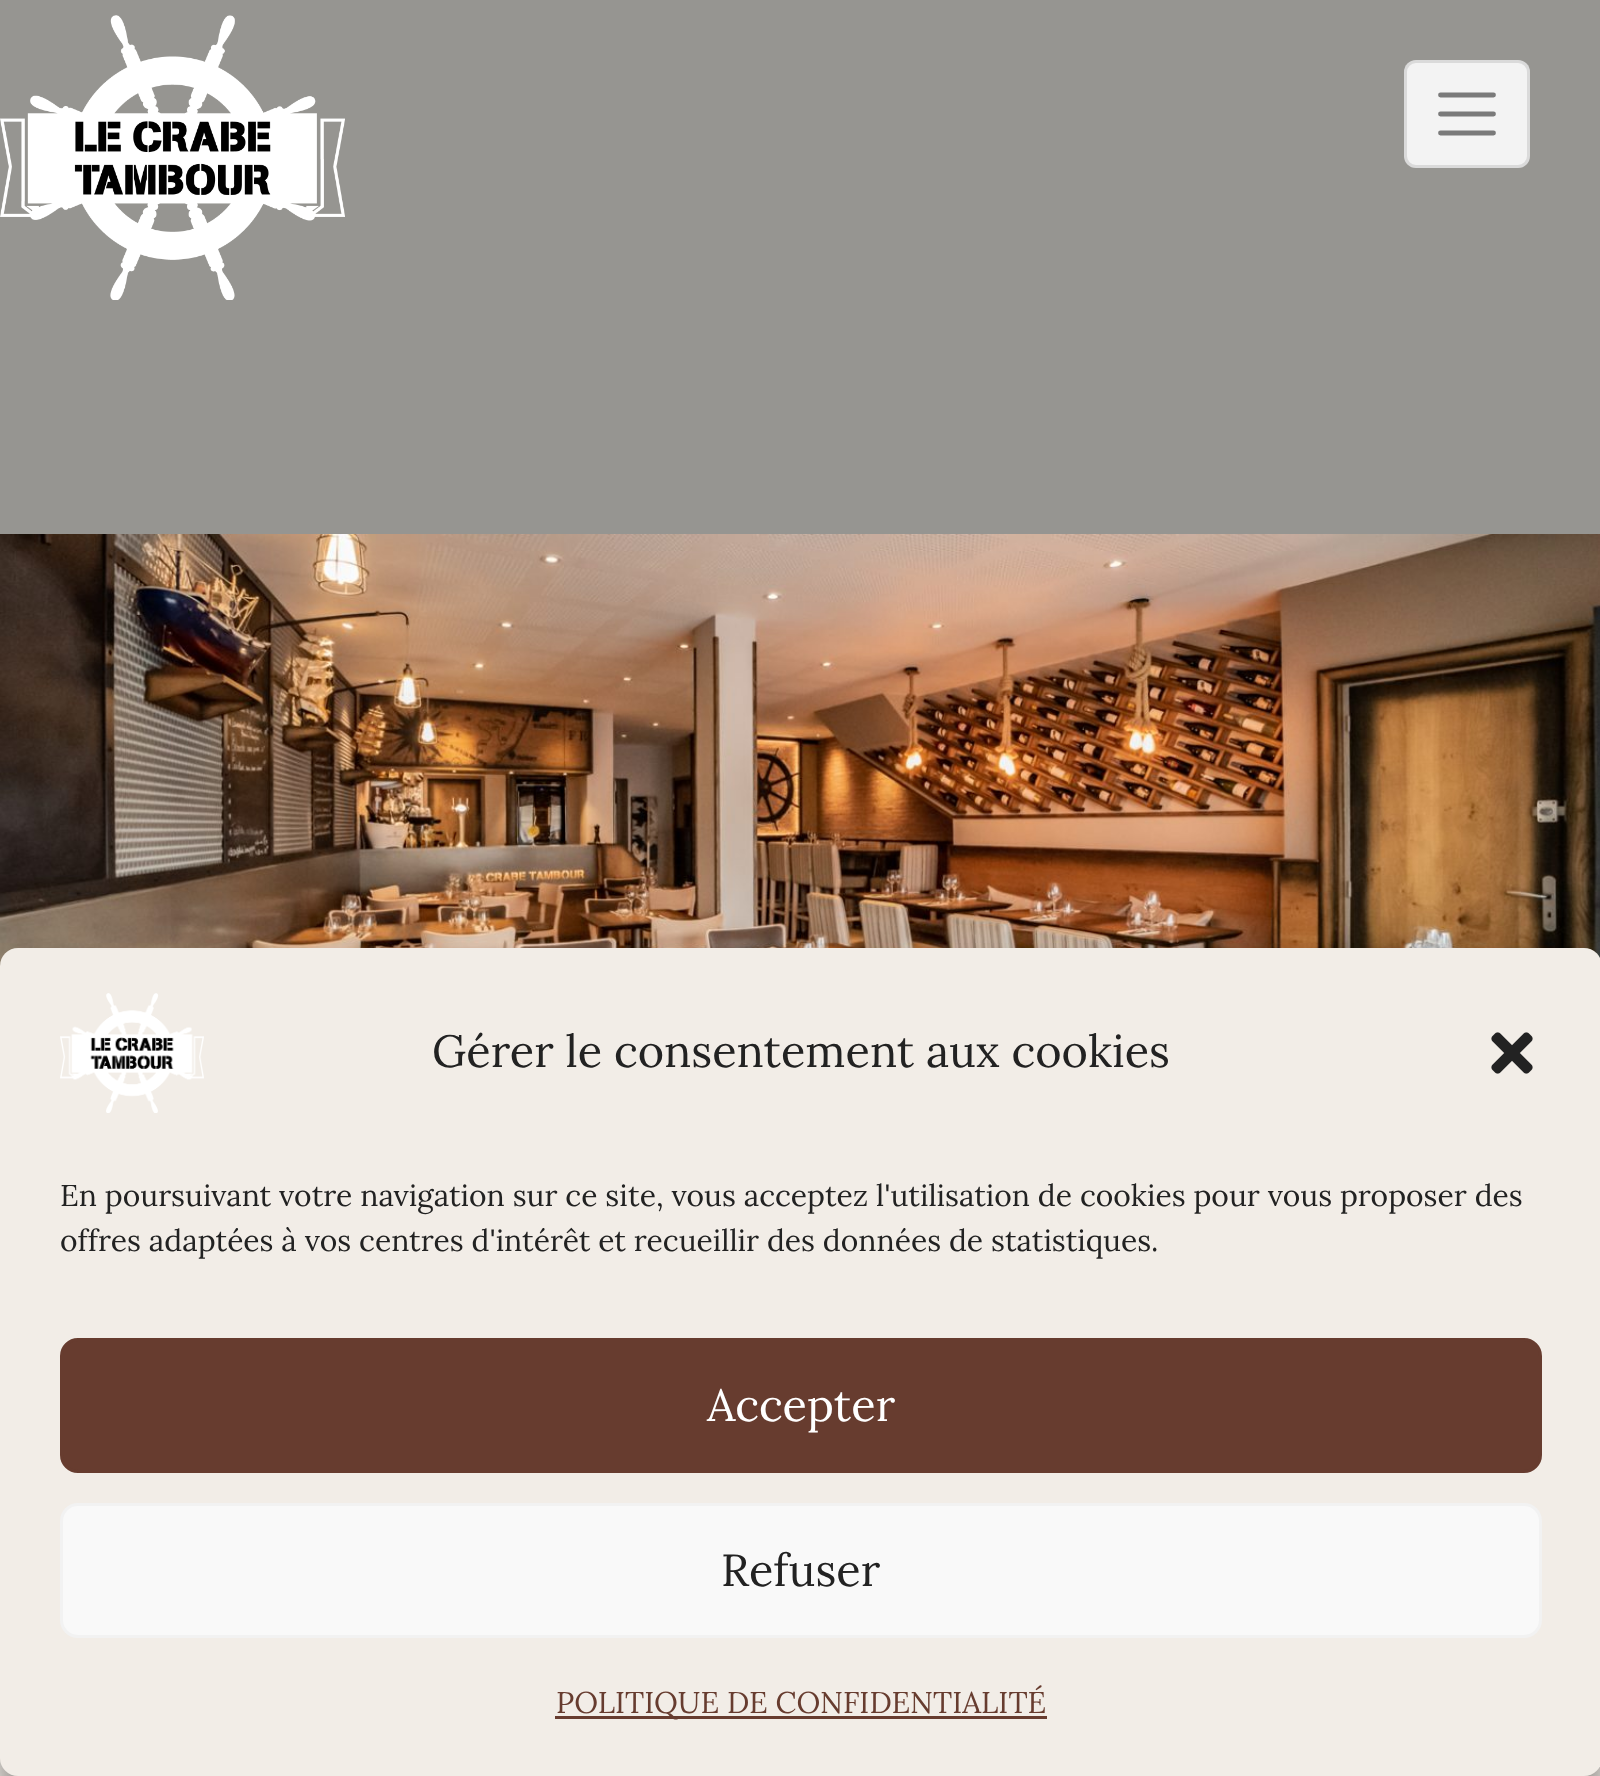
async function draw(canvas) {
  canvas.width = 1600;
  canvas.height = 1776;
  const ctx = canvas.getContext('2d');
  ctx.miterLimit = 4;
  ctx.fontKerning = 'normal';
  function label(s, x, y, font, color) {
    ctx.font = font;
    ctx.fillStyle = color;
    ctx.fillText(s, x, y);
  }
  function rect(x, y, w, h, color) {
    ctx.fillStyle = color;
    ctx.fillRect(x, y, w, h);
  }
  function roundedRect(x, y, w, h, r, color) {
    ctx.fillStyle = color;
    ctx.beginPath();
    ctx.roundRect(x, y, w, h, r);
    ctx.fill();
  }
  async function image(src, x, y, w, h) {
    const img = new Image();
    img.src = src;
    await img.decode();
    ctx.drawImage(img, x, y, w, h);
  }
  let path;

  rect(0, 0, 1600, 1776, '#f2ede7');
  rect(0, 0, 1600, 534, '#969591');
  await image('assets/img1.png', 0, 15, 345, 285);
  roundedRect(1404, 60, 126, 108, 12, '#f3f3f3');
  ctx.beginPath();
  ctx.roundRect(1405.5, 61.5, 123, 105, 10.5);
  ctx.strokeStyle = '#0000001a';
  ctx.lineWidth = 3;
  ctx.stroke();
  path = new Path2D('M1440.5 95H1493.5M1440.5 114H1493.5M1440.5 133H1493.5');
  ctx.strokeStyle = '#7a7a7a';
  ctx.lineWidth = 4.8;
  ctx.lineCap = 'round';
  ctx.stroke(path);
  await image('assets/img2.png', 0, 534, 1600, 432);
  ctx.fillStyle = '#0000003b';
  ctx.filter = 'blur(9px)';
  ctx.beginPath();
  ctx.roundRect(0, 966, 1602, 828, 18);
  ctx.fill();
  ctx.filter = 'none';
  ctx.fillStyle = '#00000030';
  ctx.filter = 'blur(30px)';
  ctx.beginPath();
  ctx.roundRect(0, 978, 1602, 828, 18);
  ctx.fill();
  ctx.filter = 'none';
  roundedRect(0, 948, 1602, 828, 18, '#f2ede7');
  await image('assets/img3.png', 60, 993, 144, 120);
  label('Gérer le consentement aux cookies', 432, 1067, '45px Lora', '#222');
  await image('assets/img4.png', 1491, 1032, 42, 42);
  label('En poursuivant votre navigation sur ce site, vous acceptez l\'utilisation de cookies pour vous proposer des', 60, 1206, '30px Lora', '#222');
  label('offres adaptées à vos centres d\'intérêt et recueillir des données de statistiques.', 60, 1251, '30px Lora', '#222');
  ctx.fillStyle = '#673c2f';
  ctx.beginPath();
  ctx.roundRect(61.5, 1339.5, 1479, 132, 16.5);
  ctx.fill();
  ctx.strokeStyle = '#673c2f';
  ctx.lineWidth = 3;
  ctx.stroke();
  label('Accepter', 707, 1421, '45px Lora', '#fff');
  ctx.fillStyle = '#f9f9f9';
  ctx.beginPath();
  ctx.roundRect(61.5, 1504.5, 1479, 132, 16.5);
  ctx.fill();
  ctx.strokeStyle = '#f2f2f2';
  ctx.stroke();
  label('Refuser', 721, 1586, '45px Lora', '#222');
  rect(555, 1716, 492, 3, '#673c2f');
  label('POLITIQUE DE CONFIDENTIALITÉ', 556, 1713, '30px Lora', '#673c2f');
}

draw(document.querySelector('canvas'));
